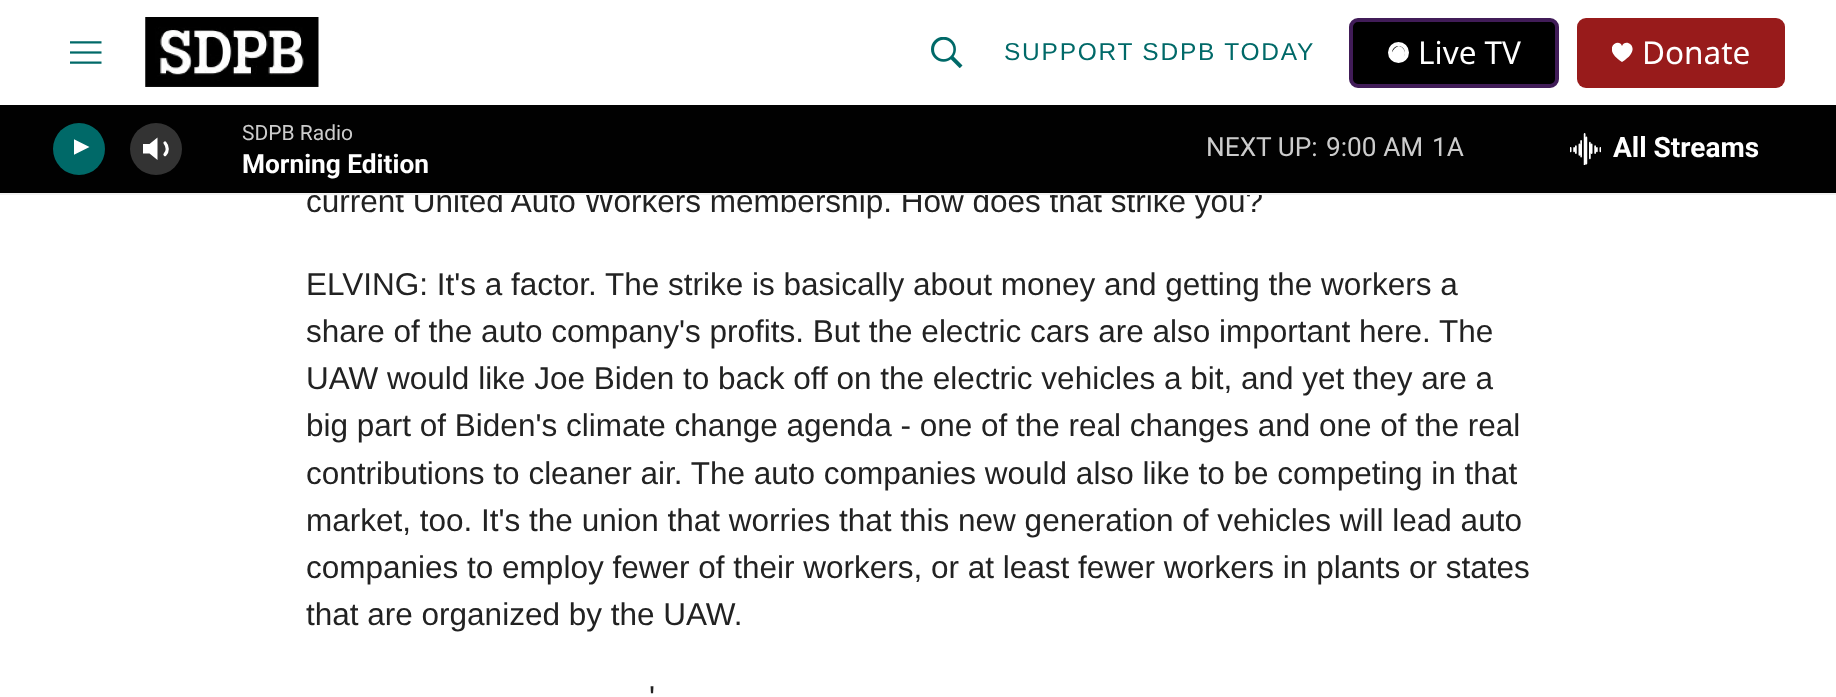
async function draw(canvas) {
  canvas.width = 1836;
  canvas.height = 697;
  const ctx = canvas.getContext('2d');
  ctx.miterLimit = 4;
  ctx.fontKerning = 'normal';
  function label(s, x, y, font, color) {
    ctx.font = font;
    ctx.fillStyle = color;
    ctx.fillText(s, x, y);
  }
  function rect(x, y, w, h, color) {
    ctx.fillStyle = color;
    ctx.fillRect(x, y, w, h);
  }
  function roundedRect(x, y, w, h, r, color) {
    ctx.fillStyle = color;
    ctx.beginPath();
    ctx.roundRect(x, y, w, h, r);
    ctx.fill();
  }
  async function image(src, x, y, w, h) {
    const img = new Image();
    img.src = src;
    await img.decode();
    ctx.drawImage(img, x, y, w, h);
  }
  let path;

  rect(0, 0, 1836, 697, '#fff');
  label('current United Auto Workers membership. How does that strike you?', 306, 212, '31.5px Liberation Sans', '#222');
  rect(0, 193, 1836, 2, '#f1f1f1');
  await image('assets/img1.png', 70, 41, 32, 23);
  await image('assets/img2.png', 145, 17, 174, 70);
  await image('assets/img3.png', 931, 37, 32, 31);
  ctx.letterSpacing = '1.75px';
  label('SUPPORT SDPB TODAY', 1004, 60, '24.5px Liberation Sans', '#006968');
  ctx.fillStyle = '#000';
  ctx.beginPath();
  ctx.roundRect(1351, 20, 206, 66, 7);
  ctx.fill();
  ctx.strokeStyle = '#411c58';
  ctx.lineWidth = 4;
  ctx.stroke();
  ctx.beginPath();
  ctx.arc(1398.5, 52.5, 8.5, 0, 2 * Math.PI);
  ctx.strokeStyle = '#fff';
  ctx.stroke();
  ctx.fillStyle = '#fff';
  path = new Path2D('M1391.5 55.5C1391.5 51 1394.5 47.5 1398.5 46C1402 46.5 1405 49.5 1405 53C1405 57 1402 60 1398 60C1395 60 1392.5 58 1391.5 55.5Z');
  ctx.fill(path);
  ctx.letterSpacing = '0px';
  label('Live TV', 1418, 64, '31.5px Noto Sans', '#fff');
  roundedRect(1577, 18, 208, 70, 9, '#981b1b');
  ctx.save();
  ctx.beginPath();
  ctx.rect(1612, 42, 21, 21);
  ctx.clip();
  ctx.fillStyle = '#fff';
  path = new Path2D('M1622 46C1619 37 1600.5 48.5 1622 62C1644 48.5 1625.5 37 1622 46Z');
  ctx.fill(path);
  ctx.restore();
  label('Donate', 1642, 64, '31.5px Noto Sans', '#fff');
  rect(0, 105, 1836, 88, '#010101');
  ctx.fillStyle = '#006968';
  ctx.beginPath();
  ctx.arc(79, 149, 26, 0, 2 * Math.PI);
  ctx.fill();
  ctx.save();
  ctx.beginPath();
  ctx.rect(74, 137, 20, 26);
  ctx.clip();
  ctx.fillStyle = '#fff';
  path = new Path2D('M72.5 138.5L89.5 147L72.5 155.5Z');
  ctx.fill(path);
  ctx.restore();
  ctx.fillStyle = '#fff';
  path = new Path2D('M157.5 137.5L149.5 144H143V153.5H149.5L157.5 160Z');
  ctx.fill(path);
  path = new Path2D('M165 143C168 146.5 168 151.5 165 154.5');
  ctx.lineWidth = 3.2;
  ctx.lineCap = 'round';
  ctx.lineJoin = 'round';
  ctx.stroke(path);
  ctx.fillStyle = '#ffffff33';
  ctx.beginPath();
  ctx.arc(156, 149, 26, 0, 2 * Math.PI);
  ctx.fill();
  label('SDPB Radio', 242, 140, '21px Roboto', '#ccc');
  label('Morning Edition', 242, 173, 'bold 26.25px Roboto', '#fff');
  label('NEXT UP:', 1206, 156, '26.25px Roboto', '#ccc');
  label('9:00 AM', 1326, 156, '26.25px Roboto', '#ccc');
  label('1A', 1432, 156, '26.25px Roboto', '#ccc');
  await image('assets/img4.png', 1570, 133, 31, 32);
  label('All Streams', 1613, 157, 'bold 28px Roboto', '#fff');
  label('ELVING: It\'s a factor. The strike is basically about money and getting the workers a', 306, 295, '31.5px Liberation Sans', '#222');
  label('share of the auto company\'s profits. But the electric cars are also important here. The', 306, 342, '31.5px Liberation Sans', '#222');
  label('UAW would like Joe Biden to back off on the electric vehicles a bit, and yet they are a', 306, 389, '31.5px Liberation Sans', '#222');
  label('big part of Biden\'s climate change agenda - one of the real changes and one of the real', 306, 436, '31.5px Liberation Sans', '#222');
  label('contributions to cleaner air. The auto companies would also like to be competing in that', 306, 484, '31.5px Liberation Sans', '#222');
  label('market, too. It\'s the union that worries that this new generation of vehicles will lead auto', 306, 531, '31.5px Liberation Sans', '#222');
  label('companies to employ fewer of their workers, or at least fewer workers in plants or states', 306, 578, '31.5px Liberation Sans', '#222');
  label('that are organized by the UAW.', 306, 625, '31.5px Liberation Sans', '#222');
  label('\'', 649, 708, '31.5px Liberation Sans', '#222');
}

draw(document.querySelector('canvas'));
